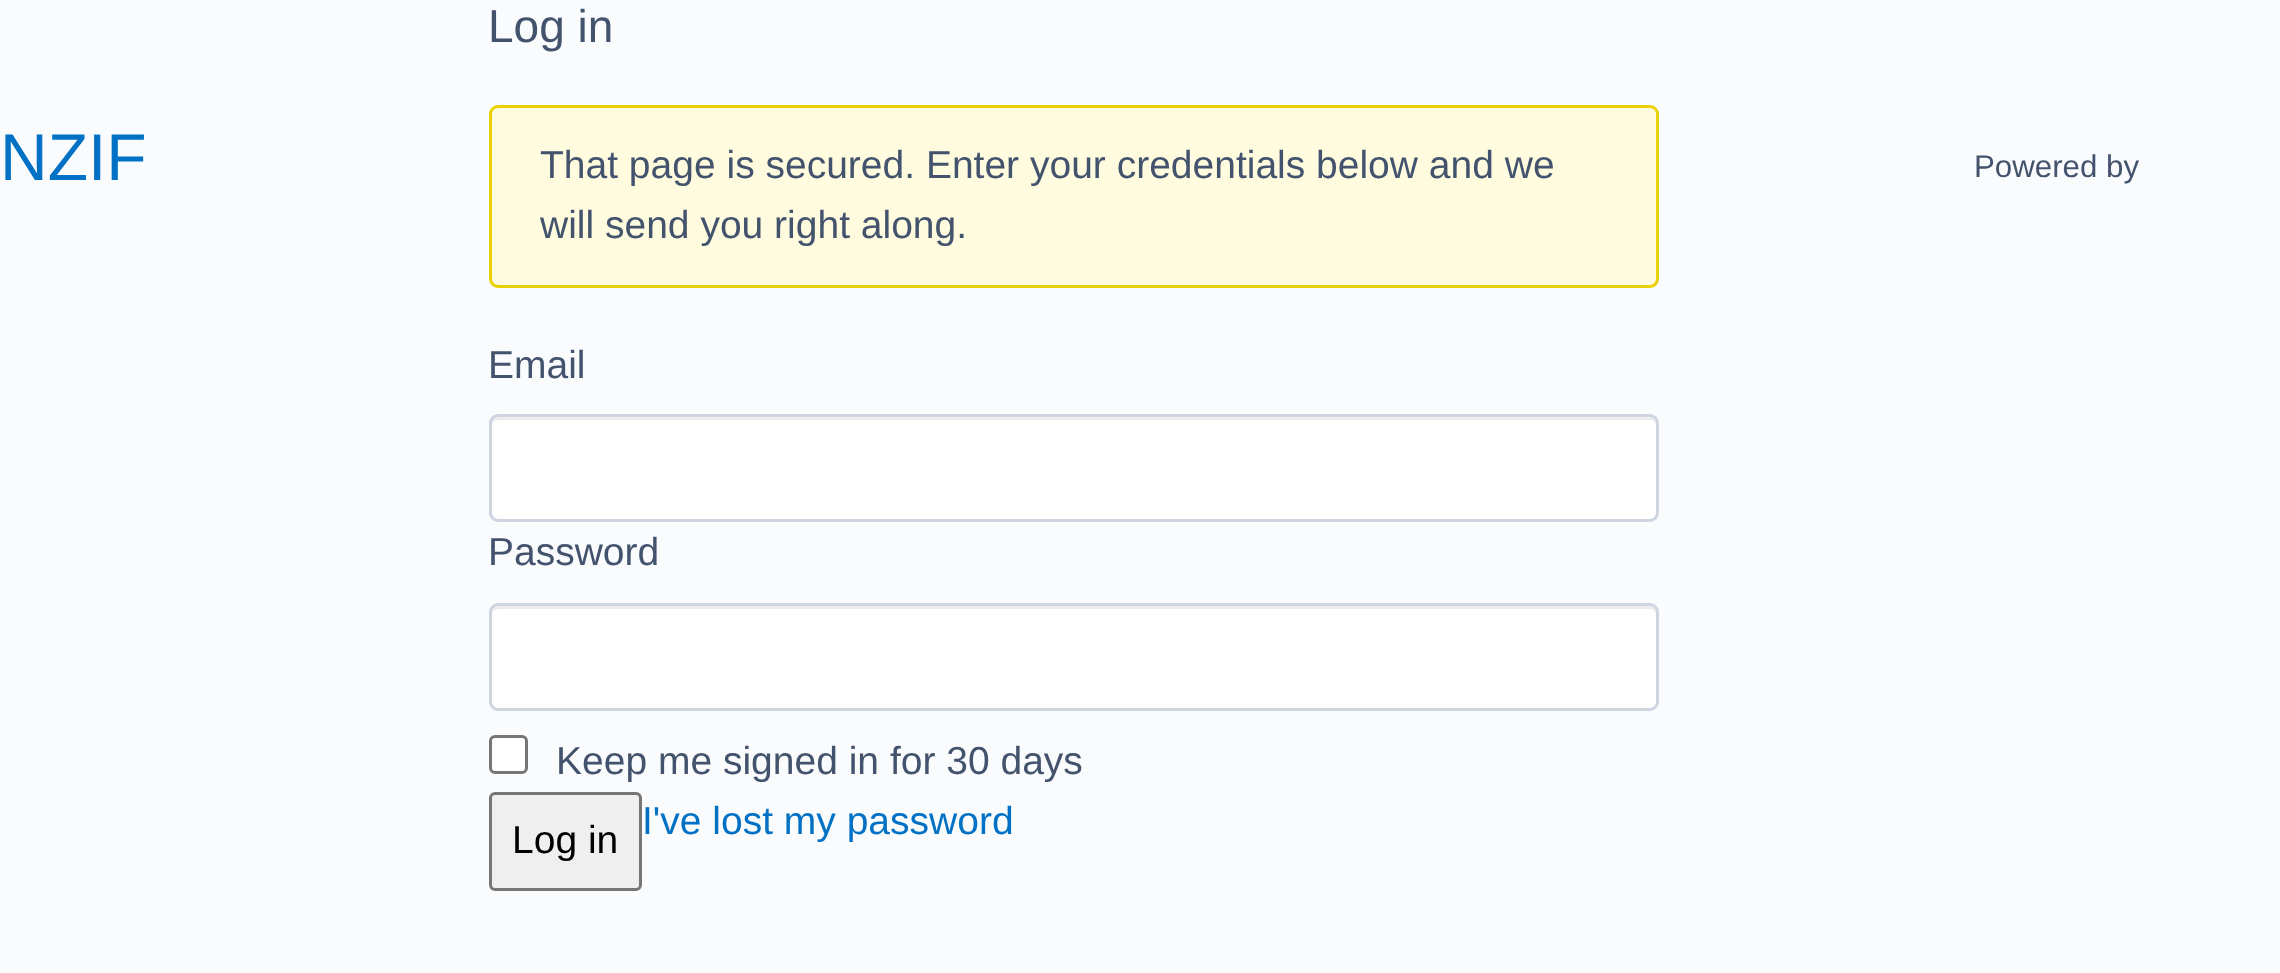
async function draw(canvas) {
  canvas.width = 2280;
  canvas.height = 973;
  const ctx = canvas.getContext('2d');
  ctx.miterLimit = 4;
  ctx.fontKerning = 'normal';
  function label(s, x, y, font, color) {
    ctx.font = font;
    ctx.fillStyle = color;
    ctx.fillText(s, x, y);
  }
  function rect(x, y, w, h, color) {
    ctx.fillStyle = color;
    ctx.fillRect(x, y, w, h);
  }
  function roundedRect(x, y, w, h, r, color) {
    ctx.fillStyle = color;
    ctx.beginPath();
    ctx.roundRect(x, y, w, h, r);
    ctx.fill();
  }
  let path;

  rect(0, 0, 2280, 973, '#fafbfc');
  label('NZIF', 0, 180, '66px Liberation Sans', '#0071c4');
  label('Log in', 488, 42, '46px Liberation Sans', '#43536d');
  ctx.fillStyle = '#fefbde';
  ctx.beginPath();
  ctx.roundRect(490.5, 106.5, 1167, 180, 7.5);
  ctx.fill();
  ctx.strokeStyle = '#e9d104';
  ctx.lineWidth = 3;
  ctx.stroke();
  label('That page is secured. Enter your credentials below and we', 540, 178, '39px Liberation Sans', '#43536d');
  label('will send you right along.', 540, 238, '39px Liberation Sans', '#43536d');
  label('Email', 488, 378, '39px Liberation Sans', '#43536d');
  roundedRect(492, 417, 1164, 102, 6, '#fff');
  ctx.fillStyle = '#ececec';
  path = new Path2D('M498 420H1650C1653 420 1656 423 1656 426V423C1656 420 1653 417 1650 417H498C495 417 492 420 492 423V426C492 423 495 420 498 420Z');
  ctx.fill(path);
  ctx.beginPath();
  ctx.roundRect(490.5, 415.5, 1167, 105, 7.5);
  ctx.strokeStyle = '#ced5e1';
  ctx.stroke();
  label('Password', 488, 565, '39px Liberation Sans', '#43536d');
  roundedRect(492, 606, 1164, 102, 6, '#fff');
  ctx.fillStyle = '#ececec';
  path = new Path2D('M498 609H1650C1653 609 1656 612 1656 615V612C1656 609 1653 606 1650 606H498C495 606 492 609 492 612V615C492 612 495 609 498 609Z');
  ctx.fill(path);
  ctx.beginPath();
  ctx.roundRect(490.5, 604.5, 1167, 105, 7.5);
  ctx.stroke();
  ctx.fillStyle = '#fff';
  ctx.beginPath();
  ctx.roundRect(490.5, 736.5, 36, 36, 4.5);
  ctx.fill();
  ctx.strokeStyle = '#767676';
  ctx.stroke();
  label('Keep me signed in for 30 days', 556, 774, '39px Liberation Sans', '#43536d');
  ctx.fillStyle = '#efefef';
  ctx.beginPath();
  ctx.roundRect(490.5, 793.5, 150, 96, 4.5);
  ctx.fill();
  ctx.stroke();
  label('Log in', 512, 853, '39px Liberation Sans', '#000');
  label('I\'ve lost my password', 642, 834, '39px Liberation Sans', '#0071c4');
  label('Powered by', 1974, 177, '31.25px Liberation Sans', '#43536d');
}

draw(document.querySelector('canvas'));
